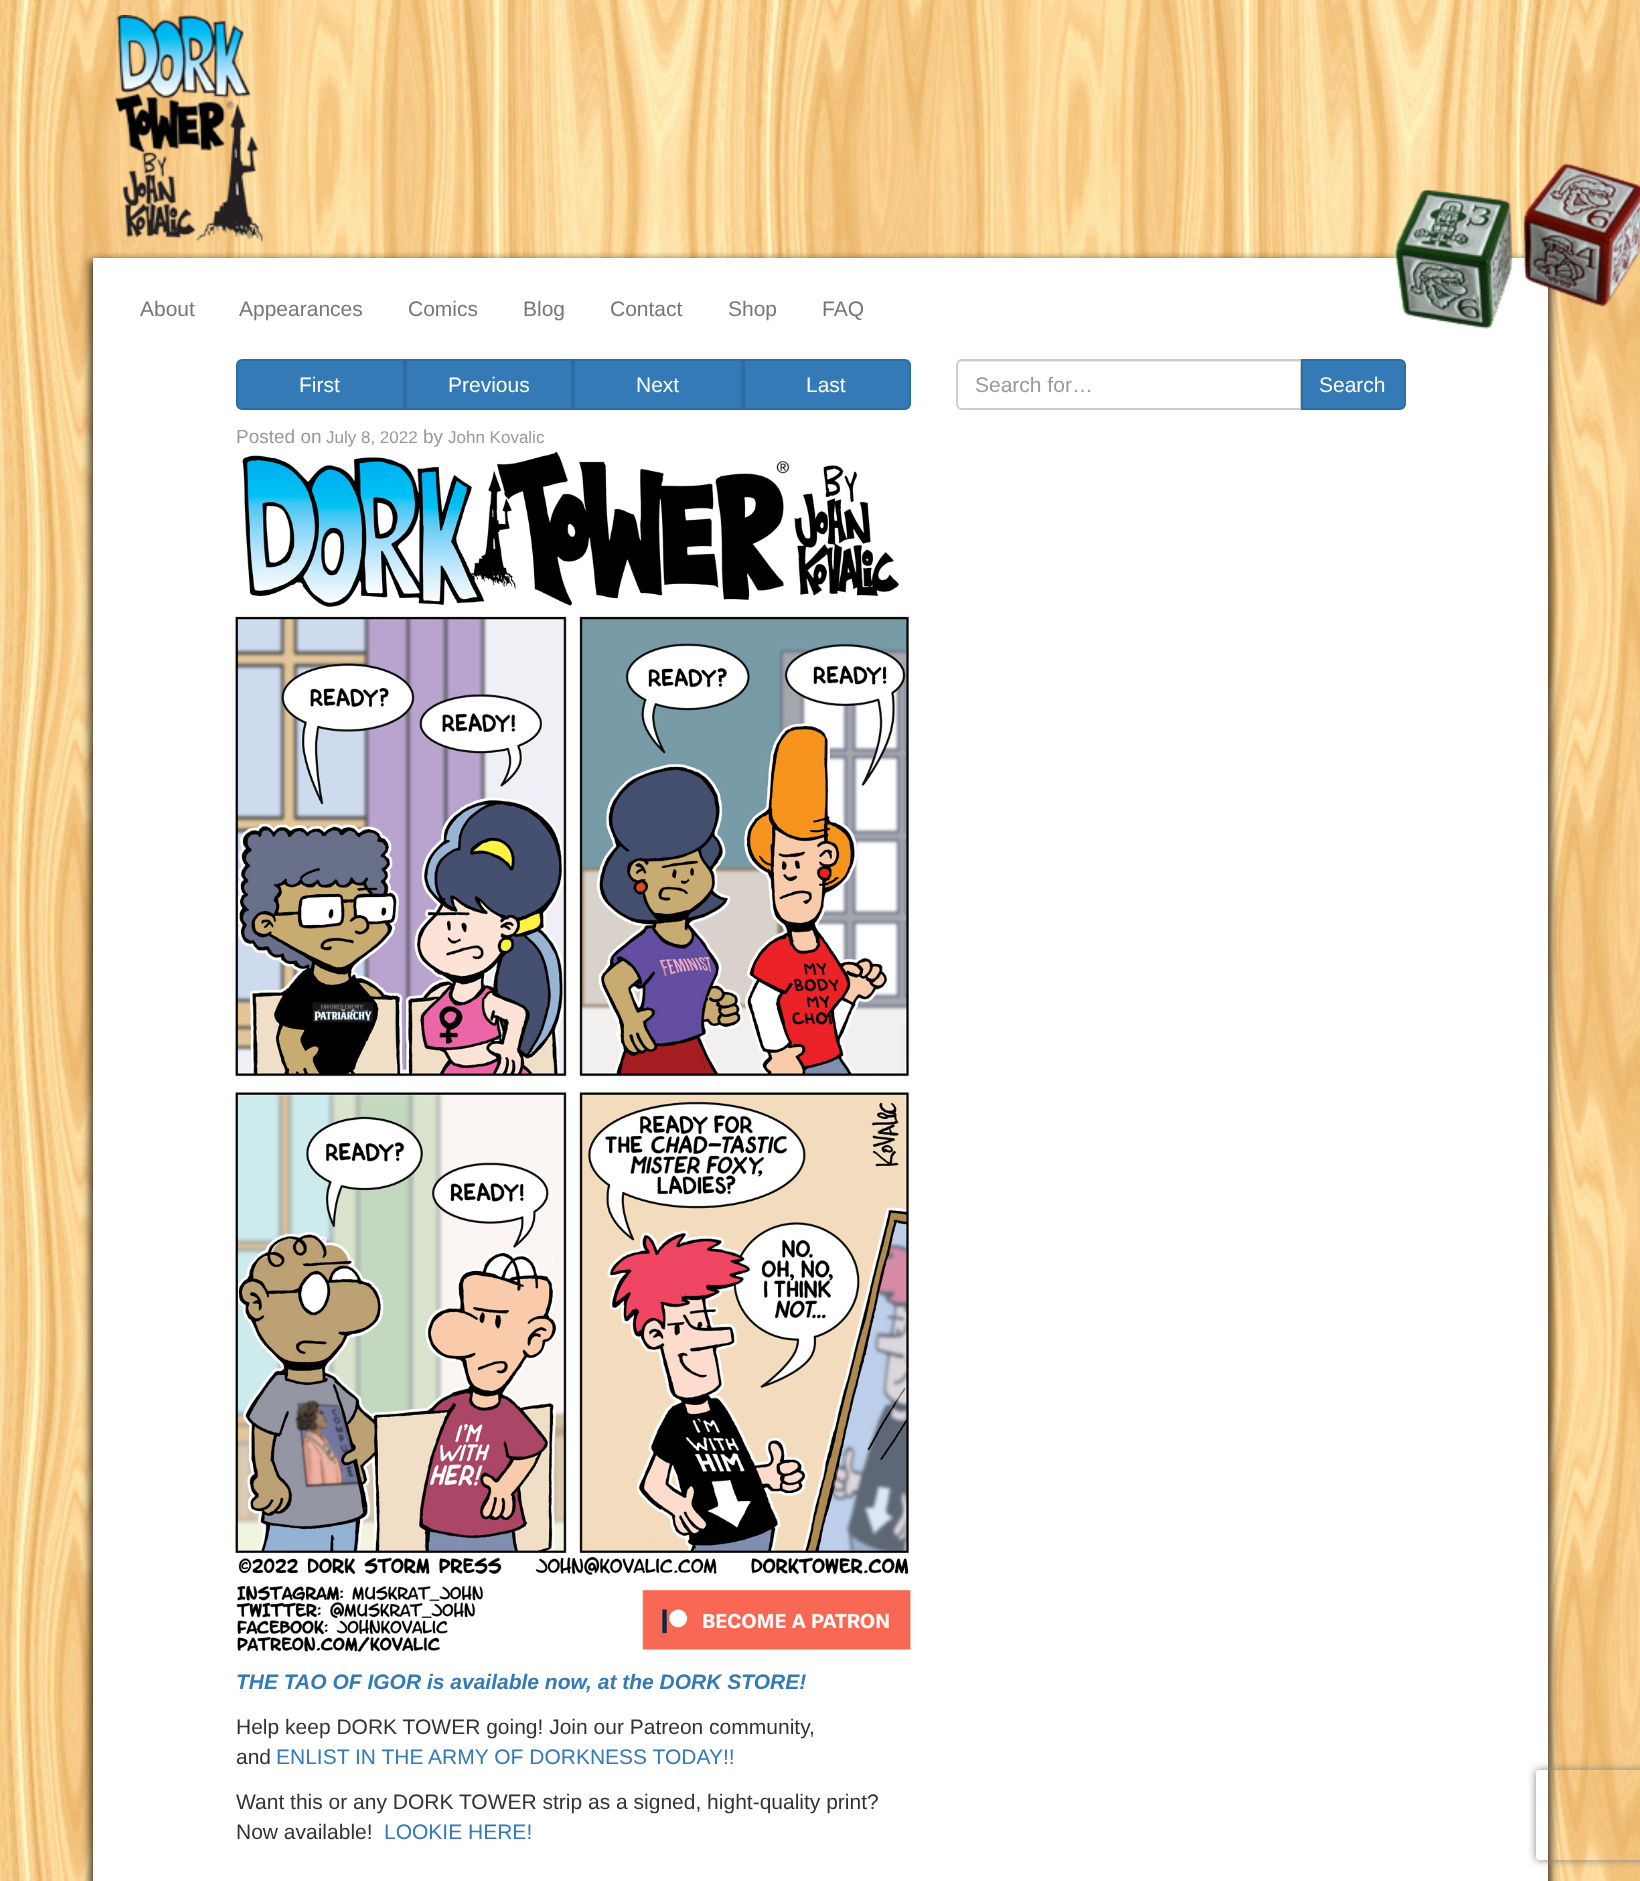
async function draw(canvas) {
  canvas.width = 1640;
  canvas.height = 1881;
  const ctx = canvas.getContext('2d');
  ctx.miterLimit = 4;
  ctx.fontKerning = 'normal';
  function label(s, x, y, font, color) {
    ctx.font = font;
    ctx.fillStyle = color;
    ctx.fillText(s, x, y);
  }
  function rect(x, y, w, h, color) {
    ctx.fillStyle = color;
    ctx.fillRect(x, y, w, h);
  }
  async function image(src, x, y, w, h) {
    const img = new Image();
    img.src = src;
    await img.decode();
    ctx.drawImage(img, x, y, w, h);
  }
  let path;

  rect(0, 0, 1640, 1881, '#fff');
  await image('assets/img1.png', 0, 0, 1640, 1881);
  await image('assets/img2.png', 115, 15, 148, 227);
  ctx.fillStyle = '#000000bf';
  ctx.filter = 'blur(4px)';
  ctx.beginPath();
  ctx.rect(90, 260, 1461, 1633);
  ctx.fill();
  ctx.filter = 'none';
  rect(93, 258, 1455, 1623, '#fff');
  await image('assets/img3.png', 1395, 163, 245, 166);
  label('About', 140, 316, '21px Liberation Sans', '#777');
  label('Appearances', 239, 316, '21px Liberation Sans', '#777');
  label('Comics', 408, 316, '21px Liberation Sans', '#777');
  label('Blog', 523, 316, '21px Liberation Sans', '#777');
  label('Contact', 610, 316, '21px Liberation Sans', '#777');
  label('Shop', 728, 316, '21px Liberation Sans', '#777');
  label('FAQ', 822, 316, '21px Liberation Sans', '#777');
  ctx.fillStyle = '#337ab7';
  ctx.beginPath();
  ctx.roundRect(237, 360, 167, 49, [5, 0, 0, 5]);
  ctx.fill();
  ctx.strokeStyle = '#2e6da4';
  ctx.lineWidth = 2;
  ctx.stroke();
  label('First', 299, 392, '21px Liberation Sans', '#fff');
  ctx.fillStyle = '#337ab7';
  ctx.beginPath();
  ctx.rect(406, 360, 166, 49);
  ctx.fill();
  ctx.stroke();
  label('Previous', 448, 392, '21px Liberation Sans', '#fff');
  ctx.fillStyle = '#337ab7';
  ctx.beginPath();
  ctx.rect(574, 360, 168, 49);
  ctx.fill();
  ctx.stroke();
  label('Next', 636, 392, '21px Liberation Sans', '#fff');
  ctx.fillStyle = '#337ab7';
  ctx.beginPath();
  ctx.roundRect(744, 360, 166, 49, [0, 5, 5, 0]);
  ctx.fill();
  ctx.stroke();
  label('Last', 806, 392, '21px Liberation Sans', '#fff');
  label('Posted on', 236, 443, '19px Liberation Sans', '#999');
  label('July 8, 2022', 326, 443, '17px Liberation Sans', '#999');
  label('by', 423, 443, '19px Liberation Sans', '#999');
  label('John Kovalic', 448, 443, '17px Liberation Sans', '#999');
  await image('assets/img4.png', 235, 451, 676, 1201);
  label('THE TAO OF IGOR is available now, at the DORK STORE!', 236, 1689, 'italic bold 21px Liberation Sans', '#337ab7');
  label('Help keep DORK TOWER going! Join our Patreon community,', 236, 1734, '21px Liberation Sans', '#333');
  label('and', 236, 1764, '21px Liberation Sans', '#333');
  label('ENLIST IN THE ARMY OF DORKNESS TODAY!!', 276, 1764, '21px Liberation Sans', '#337ab7');
  label('Want this or any DORK TOWER strip as a signed, hight-quality print?', 236, 1809, '21px Liberation Sans', '#333');
  label('Now available!', 236, 1839, '21px Liberation Sans', '#333');
  label('LOOKIE HERE!', 384, 1839, '21px Liberation Sans', '#337ab7');
  ctx.fillStyle = '#ececec';
  path = new Path2D('M962 362H1300V408H1301V360H962C959 360 957 363 957 366C957 364 959 362 962 362Z');
  ctx.fill(path);
  ctx.beginPath();
  ctx.roundRect(957, 360, 344, 49, [5, 0, 0, 5]);
  ctx.strokeStyle = '#ccc';
  ctx.stroke();
  label('Search for…', 975, 392, '21px Liberation Sans', '#999');
  ctx.fillStyle = '#337ab7';
  ctx.beginPath();
  ctx.roundRect(1302, 360, 103, 49, [0, 5, 5, 0]);
  ctx.fill();
  ctx.strokeStyle = '#2e6da4';
  ctx.stroke();
  label('Search', 1319, 392, '21px Liberation Sans', '#fff');
  ctx.save();
  path = new Path2D('M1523 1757H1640V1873H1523ZM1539 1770H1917C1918.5 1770 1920 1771.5 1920 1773V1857C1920 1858.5 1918.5 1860 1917 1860H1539C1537.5 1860 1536 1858.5 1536 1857V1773C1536 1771.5 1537.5 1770 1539 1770Z');
  ctx.clip(path, 'evenodd');
  ctx.fillStyle = '#808080';
  ctx.filter = 'blur(4px)';
  ctx.beginPath();
  ctx.roundRect(1536, 1770, 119, 90, 3);
  ctx.fill();
  ctx.filter = 'none';
  ctx.restore();
}

draw(document.querySelector('canvas'));
